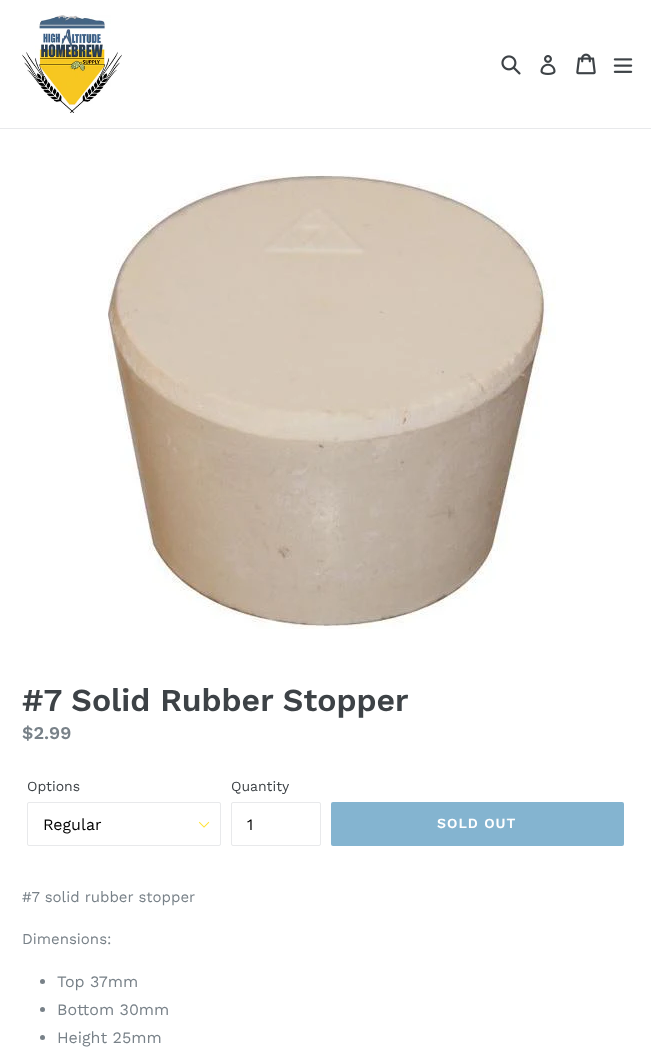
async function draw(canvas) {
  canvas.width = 651;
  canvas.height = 1049;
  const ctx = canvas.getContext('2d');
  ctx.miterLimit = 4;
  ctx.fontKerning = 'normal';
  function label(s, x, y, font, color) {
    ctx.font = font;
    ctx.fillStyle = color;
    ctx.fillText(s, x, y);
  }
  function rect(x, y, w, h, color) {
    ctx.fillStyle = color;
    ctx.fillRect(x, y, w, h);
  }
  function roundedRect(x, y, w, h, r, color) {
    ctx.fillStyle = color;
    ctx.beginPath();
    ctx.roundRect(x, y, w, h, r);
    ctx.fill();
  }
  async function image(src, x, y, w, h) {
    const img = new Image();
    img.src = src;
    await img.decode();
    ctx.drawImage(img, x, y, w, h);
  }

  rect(0, 0, 651, 1049, '#fff');
  rect(0, 128, 651, 1, '#e8e9eb');
  await image('assets/img1.png', 22, 15, 100, 98);
  await image('assets/img2.png', 501, 55, 20, 20);
  await image('assets/img3.png', 540, 55, 16, 20);
  await image('assets/img4.png', 576, 53, 20, 22);
  await image('assets/img5.png', 613, 58, 20, 15);
  await image('assets/img6.png', 108, 173, 448, 456);
  label('#7 Solid Rubber Stopper', 22, 711, '600 32px Work Sans', '#3d4246');
  label('$2.99', 22, 739, '600 18px Work Sans', '#788188');
  label('Options', 27, 791, '14px Work Sans', '#3d4246');
  await image('assets/img7.png', 198, 821, 12, 7);
  ctx.beginPath();
  ctx.roundRect(27.5, 802.5, 193, 43, 1.5);
  ctx.strokeStyle = '#e8e9eb';
  ctx.stroke();
  label('Regular', 43, 830, '16px Work Sans', '#000');
  label('Quantity', 231, 791, '14px Work Sans', '#3d4246');
  ctx.beginPath();
  ctx.roundRect(231.5, 802.5, 89, 43, 1.5);
  ctx.stroke();
  label('1', 247, 830, '16px Work Sans', '#000');
  roundedRect(331, 802, 293, 44, 2, '#84b4d0');
  ctx.letterSpacing = '1px';
  label('SOLD OUT', 437, 828, '600 14px Work Sans', '#fff');
  ctx.letterSpacing = '0px';
  label('#7 solid rubber stopper', 22, 902, '15px Work Sans', '#788188');
  label('Dimensions:', 22, 944, '15px Work Sans', '#788188');
  ctx.beginPath();
  ctx.arc(42.5, 981.5, 2.5, 0, 2 * Math.PI);
  ctx.fill();
  label('Top 37mm', 57, 987, '16px Work Sans', '#788188');
  ctx.beginPath();
  ctx.arc(42.5, 1009.5, 2.5, 0, 2 * Math.PI);
  ctx.fill();
  label('Bottom 30mm', 57, 1015, '16px Work Sans', '#788188');
  ctx.beginPath();
  ctx.arc(42.5, 1037.5, 2.5, 0, 2 * Math.PI);
  ctx.fill();
  label('Height 25mm', 57, 1043, '16px Work Sans', '#788188');
}

draw(document.querySelector('canvas'));
